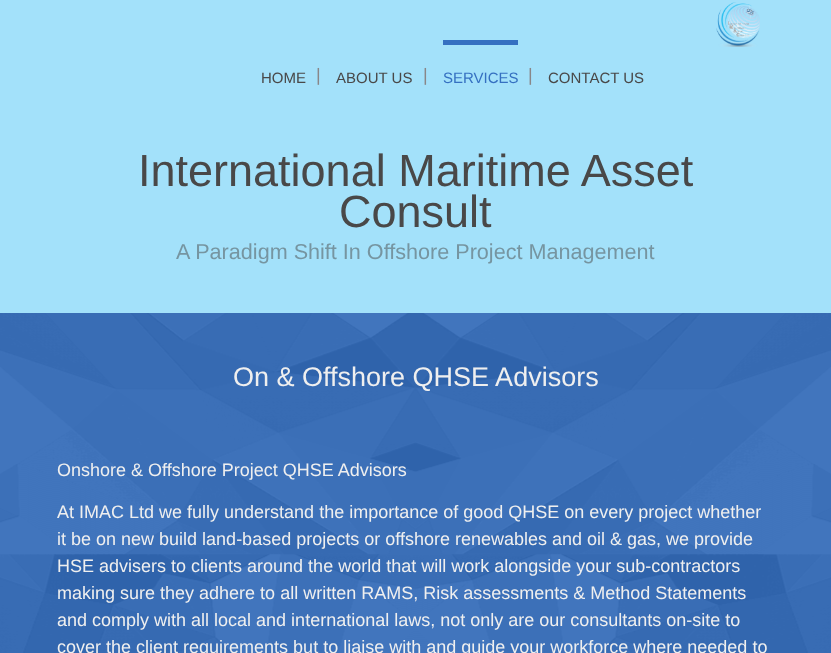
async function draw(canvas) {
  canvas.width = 831;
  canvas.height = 653;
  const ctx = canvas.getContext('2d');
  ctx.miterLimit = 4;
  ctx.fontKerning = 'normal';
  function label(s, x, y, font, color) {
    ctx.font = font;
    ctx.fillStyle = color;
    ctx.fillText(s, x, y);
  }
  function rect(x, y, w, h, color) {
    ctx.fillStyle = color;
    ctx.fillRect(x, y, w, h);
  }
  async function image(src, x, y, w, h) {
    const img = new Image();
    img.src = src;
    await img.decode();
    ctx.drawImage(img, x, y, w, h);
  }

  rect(0, 0, 831, 653, '#a3e1fa');
  await image('assets/img1.png', 716, 2, 44, 45);
  label('HOME', 261, 83, '15px Liberation Sans', '#494848');
  label('|', 316, 81, '18px Liberation Sans', '#898788');
  label('ABOUT US', 336, 83, '15px Liberation Sans', '#494848');
  label('|', 423, 81, '18px Liberation Sans', '#898788');
  rect(443, 40, 75, 5, '#3570c1');
  label('SERVICES', 443, 83, '15px Liberation Sans', '#3570c1');
  label('|', 528, 81, '18px Liberation Sans', '#898788');
  label('CONTACT US', 548, 83, '15px Liberation Sans', '#494848');
  label('International Maritime Asset', 138, 186, '45px Liberation Sans', '#494848');
  label('Consult', 339, 227, '45px Liberation Sans', '#494848');
  label('A Paradigm Shift In Offshore Project Management', 176, 259, '21.6px Liberation Sans', '#7695a1');
  rect(0, 313, 831, 340, '#3570c1');
  await image('assets/img2.png', 0, 313, 831, 340);
  label('On & Offshore QHSE Advisors', 233, 386, '27px Liberation Sans', '#efefef');
  label('Onshore & Offshore Project QHSE Advisors', 57, 476, '18px Liberation Sans', '#efefef');
  label('At IMAC Ltd we fully understand the importance of good QHSE on every project whether', 57, 518, '18px Liberation Sans', '#efefef');
  label('it be on new build land-based projects or offshore renewables and oil & gas, we provide', 57, 545, '18px Liberation Sans', '#efefef');
  label('HSE advisers to clients around the world that will work alongside your sub-contractors', 57, 572, '18px Liberation Sans', '#efefef');
  label('making sure they adhere to all written RAMS, Risk assessments & Method Statements', 57, 599, '18px Liberation Sans', '#efefef');
  label('and comply with all local and international laws, not only are our consultants on-site to', 57, 626, '18px Liberation Sans', '#efefef');
  label('cover the client requirements but to liaise with and guide your workforce where needed to', 57, 653, '18px Liberation Sans', '#efefef');
}

draw(document.querySelector('canvas'));
